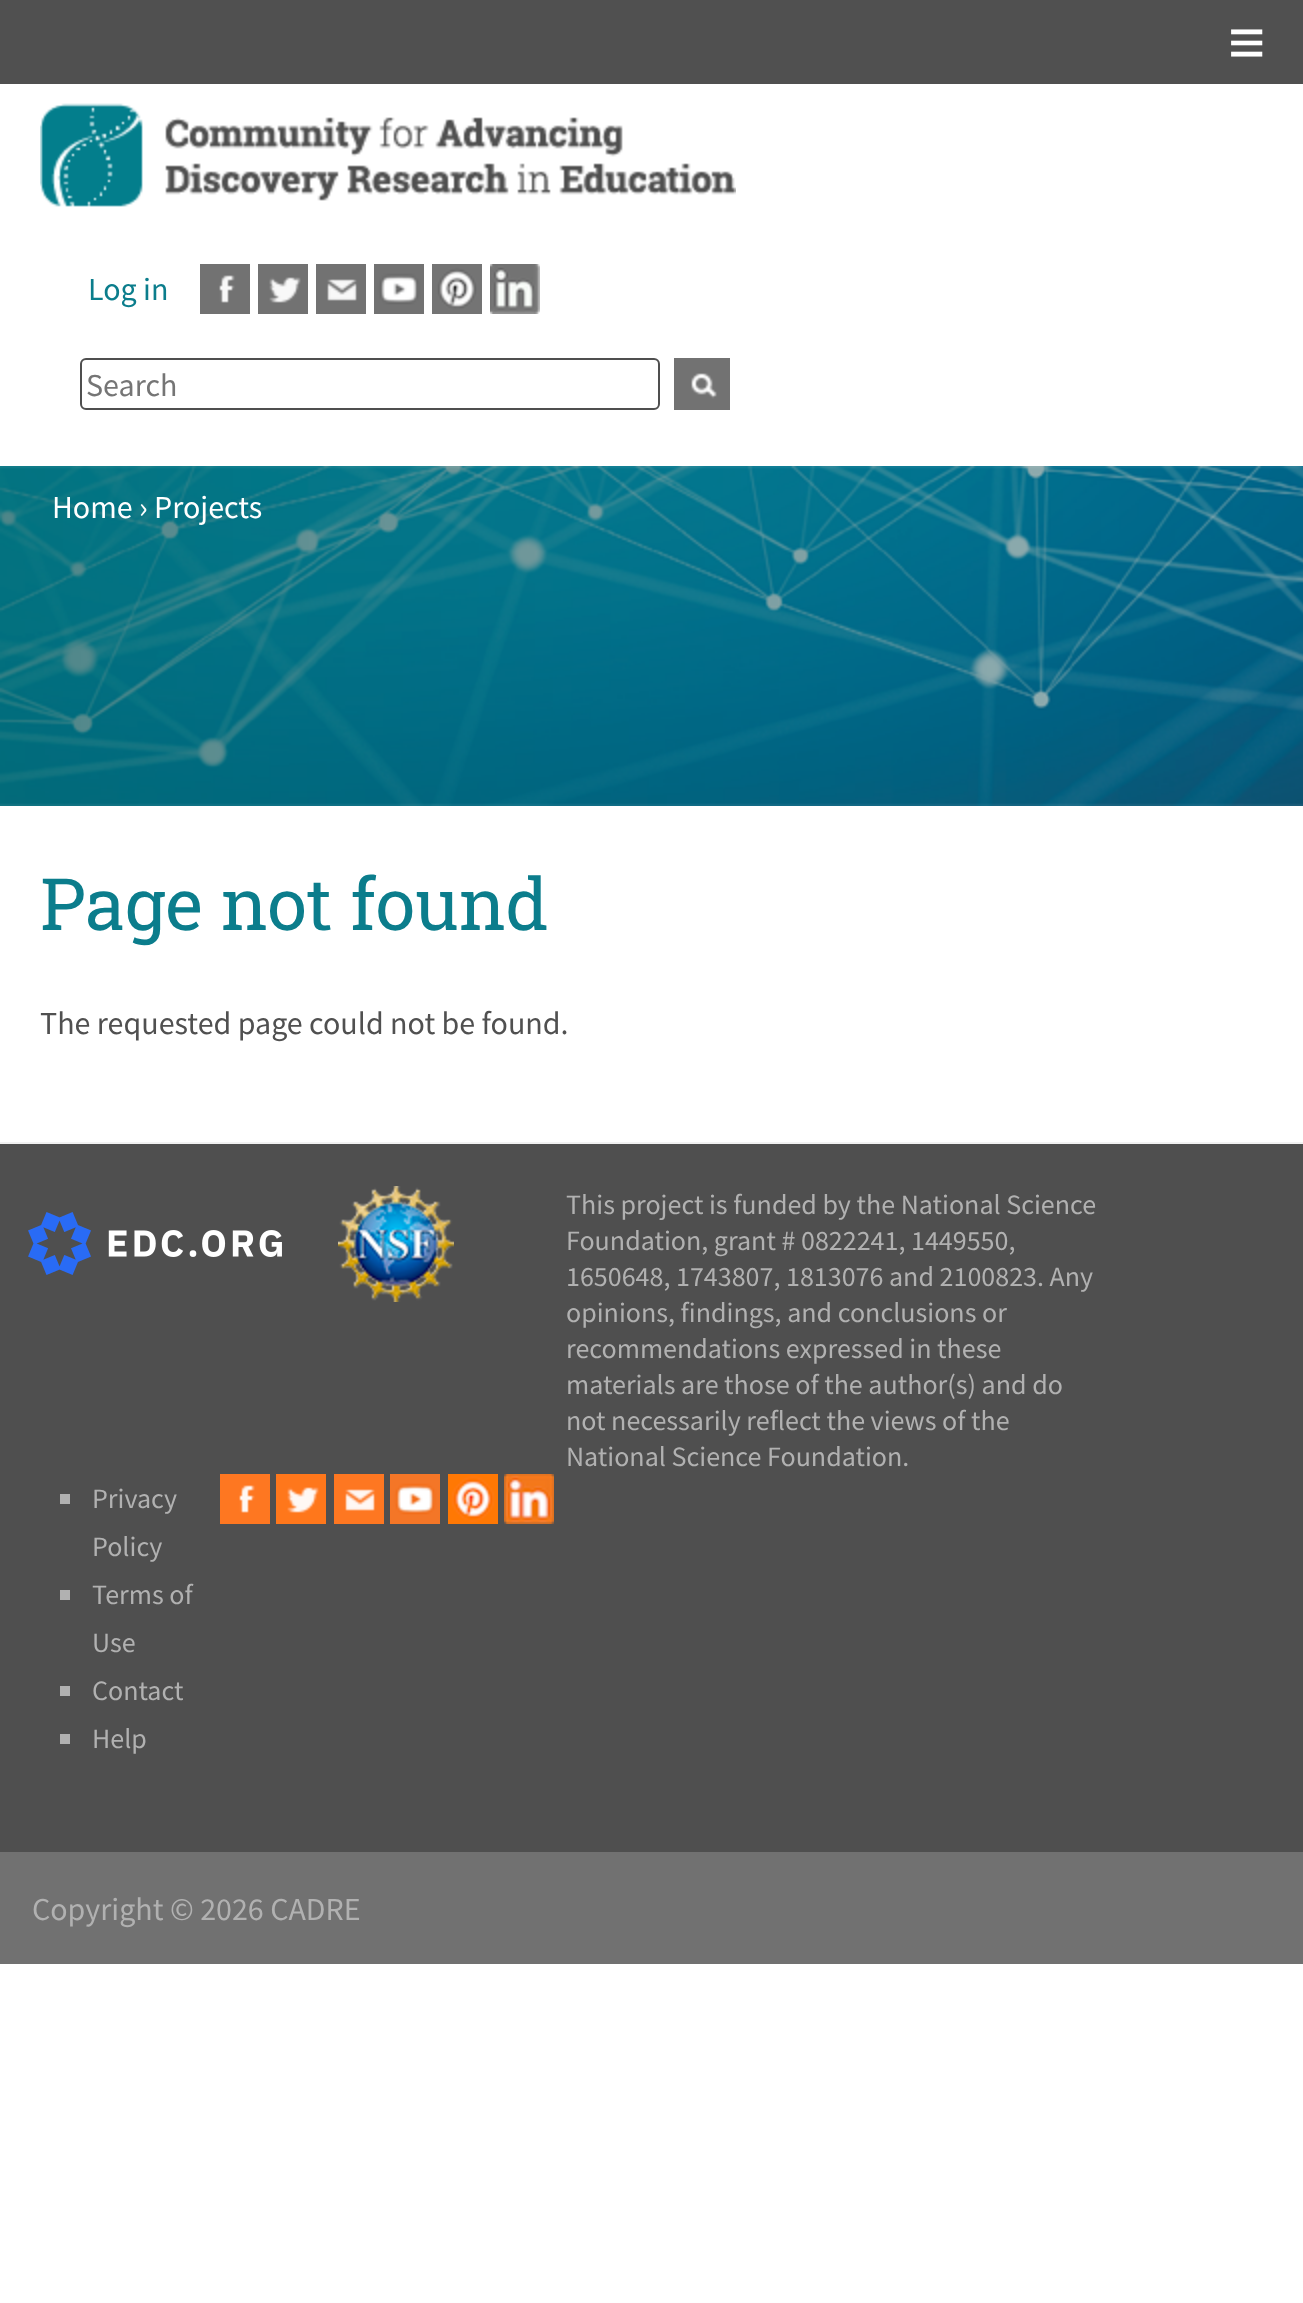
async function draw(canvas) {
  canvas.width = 1303;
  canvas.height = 2303;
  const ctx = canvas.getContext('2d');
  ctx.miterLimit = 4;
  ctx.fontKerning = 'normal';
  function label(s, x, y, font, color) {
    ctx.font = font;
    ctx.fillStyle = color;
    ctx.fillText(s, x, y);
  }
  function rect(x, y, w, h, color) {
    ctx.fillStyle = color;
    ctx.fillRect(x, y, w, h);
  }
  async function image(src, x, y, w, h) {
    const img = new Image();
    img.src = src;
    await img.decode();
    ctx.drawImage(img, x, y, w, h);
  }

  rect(0, 0, 1303, 2303, '#fff');
  rect(0, 0, 1303, 84, '#505050');
  label('≡', 1228, 64, '64px Liberation Sans', '#fff');
  ctx.beginPath();
  ctx.roundRect(81, 359, 578, 50, 5);
  ctx.strokeStyle = '#4f4f4f';
  ctx.lineWidth = 2;
  ctx.stroke();
  label('Search', 86, 396, '32px Source Sans Pro', '#757575');
  await image('assets/img1.png', 674, 358, 56, 52);
  await image('assets/img2.png', 40, 103, 696, 104);
  label('Log in', 88, 300, '32px Source Sans Pro', '#0b7d8c');
  await image('assets/img3.png', 200, 264, 50, 50);
  await image('assets/img4.png', 258, 264, 50, 50);
  await image('assets/img5.png', 316, 264, 50, 50);
  await image('assets/img6.png', 374, 264, 50, 50);
  await image('assets/img7.png', 432, 264, 50, 50);
  await image('assets/img8.png', 490, 264, 50, 50);
  await image('assets/img9.png', 0, 466, 1303, 340);
  label('Home › Projects', 52, 518, '32px Source Sans Pro', '#fff');
  label('Page not found', 40, 930, '72px Roboto Slab', '#0b7d8c');
  label('The requested page could not be found.', 40, 1034, '32px Source Sans Pro', '#505050');
  rect(0, 1144, 1303, 708, '#4f4f4f');
  rect(0, 1142, 1303, 2, '#f1f1f1');
  await image('assets/img10.png', 28, 1212, 254, 63);
  await image('assets/img11.png', 338, 1186, 116, 116);
  label('This project is funded by the National Science', 566, 1214, '28px Source Sans Pro', '#b1b1b1');
  label('Foundation, grant # 0822241, 1449550,', 566, 1250, '28px Source Sans Pro', '#b1b1b1');
  label('1650648, 1743807, 1813076 and 2100823. Any', 566, 1286, '28px Source Sans Pro', '#b1b1b1');
  label('opinions, findings, and conclusions or', 566, 1322, '28px Source Sans Pro', '#b1b1b1');
  label('recommendations expressed in these', 566, 1358, '28px Source Sans Pro', '#b1b1b1');
  label('materials are those of the author(s) and do', 566, 1394, '28px Source Sans Pro', '#b1b1b1');
  label('not necessarily reflect the views of the', 566, 1430, '28px Source Sans Pro', '#b1b1b1');
  label('National Science Foundation.', 566, 1466, '28px Source Sans Pro', '#b1b1b1');
  rect(60, 1494, 10, 10, '#b1b1b1');
  label('Privacy', 92, 1508, '28px Source Sans Pro', '#b1b1b1');
  label('Policy', 92, 1556, '28px Source Sans Pro', '#b1b1b1');
  rect(60, 1590, 10, 10, '#b1b1b1');
  label('Terms of', 92, 1604, '28px Source Sans Pro', '#b1b1b1');
  label('Use', 92, 1652, '28px Source Sans Pro', '#b1b1b1');
  rect(60, 1686, 10, 10, '#b1b1b1');
  label('Contact', 92, 1700, '28px Source Sans Pro', '#b1b1b1');
  rect(60, 1734, 10, 10, '#b1b1b1');
  label('Help', 92, 1748, '28px Source Sans Pro', '#b1b1b1');
  await image('assets/img12.png', 220, 1474, 50, 50);
  await image('assets/img13.png', 276, 1474, 50, 50);
  await image('assets/img14.png', 334, 1474, 50, 50);
  await image('assets/img15.png', 390, 1474, 50, 50);
  await image('assets/img16.png', 448, 1474, 50, 50);
  await image('assets/img17.png', 504, 1474, 50, 50);
  rect(0, 1852, 1303, 112, '#717171');
  label('Copyright © 2026 CADRE', 32, 1920, '32px Source Sans Pro', '#b1b1b1');
}

draw(document.querySelector('canvas'));
